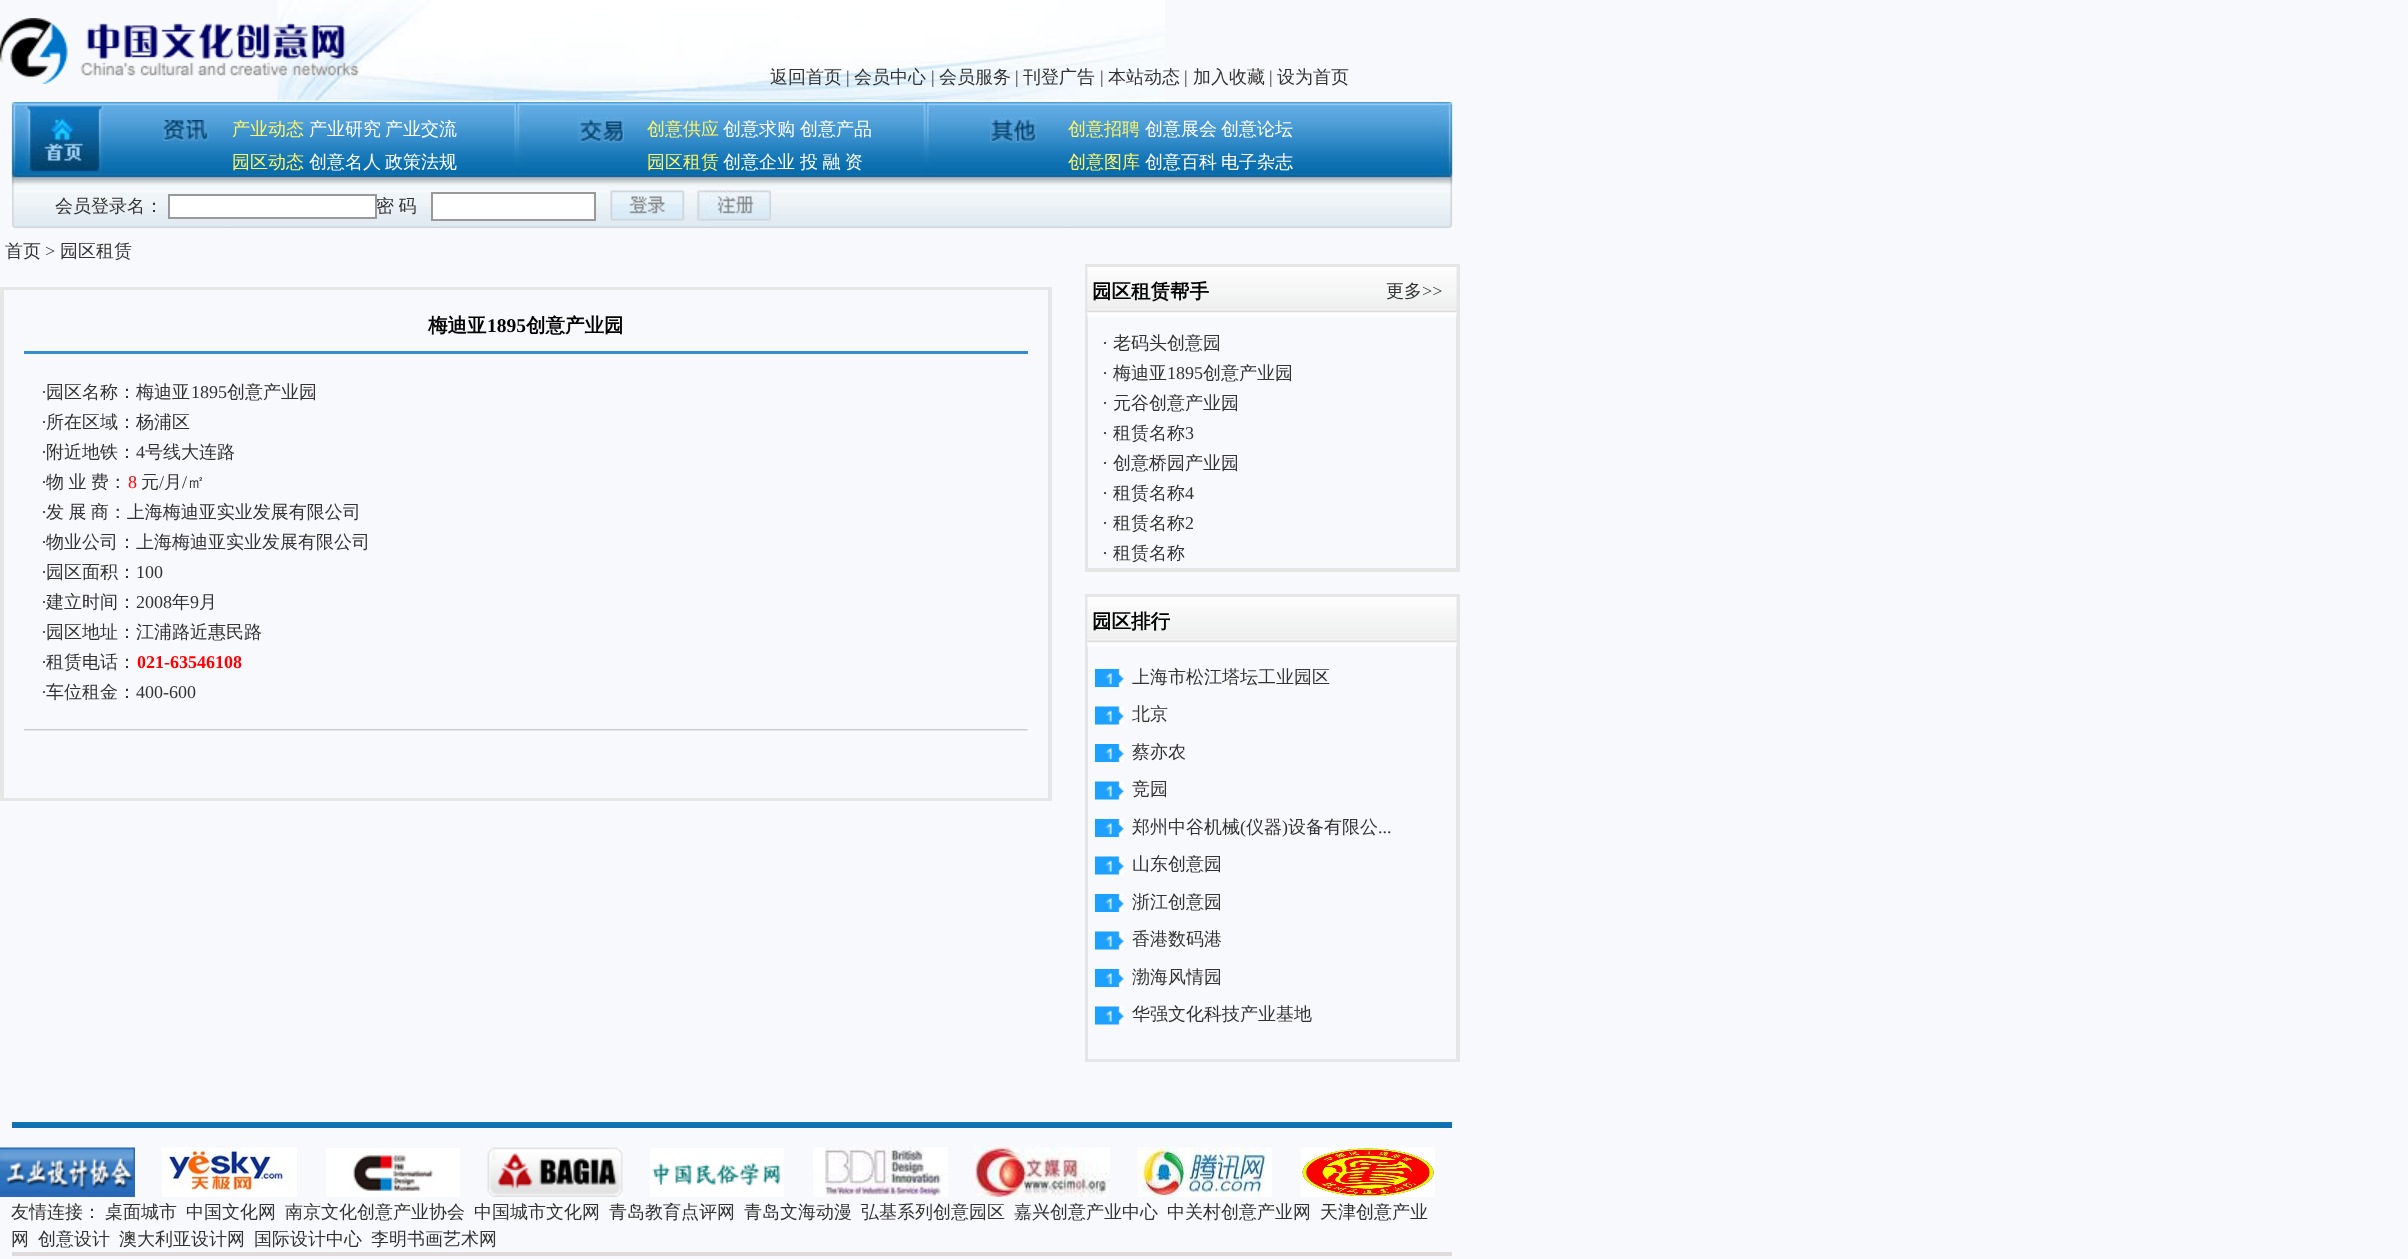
async function draw(canvas) {
  canvas.width = 2408;
  canvas.height = 1259;
  const ctx = canvas.getContext('2d');
  ctx.miterLimit = 4;
  ctx.fontKerning = 'normal';
  function label(s, x, y, font, color) {
    ctx.font = font;
    ctx.fillStyle = color;
    ctx.fillText(s, x, y);
  }
  function rect(x, y, w, h, color) {
    ctx.fillStyle = color;
    ctx.fillRect(x, y, w, h);
  }
  async function image(src, x, y, w, h) {
    const img = new Image();
    img.src = src;
    await img.decode();
    ctx.drawImage(img, x, y, w, h);
  }

  rect(0, 0, 2408, 1259, '#f8f9fc');
  await image('assets/img1.png', 277, 0, 888, 102);
  await image('assets/img2.png', 0, 18, 359, 66);
  label('返回首页', 770, 83, '500 18px WenQuanYi Zen Hei', '#333');
  label('|', 846, 83, '18px Liberation Serif', '#333');
  label('会员中心', 854, 83, '500 18px WenQuanYi Zen Hei', '#333');
  label('|', 931, 83, '18px Liberation Serif', '#333');
  label('会员服务', 939, 83, '500 18px WenQuanYi Zen Hei', '#333');
  label('|', 1015, 83, '18px Liberation Serif', '#333');
  label('刊登广告', 1023, 83, '500 18px WenQuanYi Zen Hei', '#333');
  label('|', 1100, 83, '18px Liberation Serif', '#333');
  label('本站动态', 1108, 83, '500 18px WenQuanYi Zen Hei', '#333');
  label('|', 1184, 83, '18px Liberation Serif', '#333');
  label('加入收藏', 1193, 83, '500 18px WenQuanYi Zen Hei', '#333');
  label('|', 1269, 83, '18px Liberation Serif', '#333');
  label('设为首页', 1277, 83, '500 18px WenQuanYi Zen Hei', '#333');
  await image('assets/img3.png', 10, 102, 1444, 81);
  await image('assets/img4.png', 25, 106, 79, 67);
  await image('assets/img5.png', 162, 120, 47, 21);
  label('产业动态', 232, 135, '500 18px WenQuanYi Zen Hei', '#fff468');
  label('产业研究', 309, 135, '500 18px WenQuanYi Zen Hei', '#fff');
  label('产业交流', 385, 135, '500 18px WenQuanYi Zen Hei', '#fff');
  label('园区动态', 232, 168, '500 18px WenQuanYi Zen Hei', '#fff468');
  label('创意名人', 309, 168, '500 18px WenQuanYi Zen Hei', '#fff');
  label('政策法规', 385, 168, '500 18px WenQuanYi Zen Hei', '#fff');
  await image('assets/img6.png', 577, 117, 47, 26);
  label('创意供应', 647, 135, '500 18px WenQuanYi Zen Hei', '#fff468');
  label('创意求购', 723, 135, '500 18px WenQuanYi Zen Hei', '#fff');
  label('创意产品', 800, 135, '500 18px WenQuanYi Zen Hei', '#fff');
  label('园区租赁', 647, 168, '500 18px WenQuanYi Zen Hei', '#fff468');
  label('创意企业', 723, 168, '500 18px WenQuanYi Zen Hei', '#fff');
  ctx.wordSpacing = '-1px';
  label('投 融 资', 800, 168, '500 18px WenQuanYi Zen Hei', '#fff');
  await image('assets/img7.png', 990, 117, 47, 26);
  ctx.wordSpacing = '0px';
  label('创意招聘', 1068, 135, '500 18px WenQuanYi Zen Hei', '#fff468');
  label('创意展会', 1145, 135, '500 18px WenQuanYi Zen Hei', '#fff');
  label('创意论坛', 1221, 135, '500 18px WenQuanYi Zen Hei', '#fff');
  label('创意图库', 1068, 168, '500 18px WenQuanYi Zen Hei', '#fff468');
  label('创意百科', 1145, 168, '500 18px WenQuanYi Zen Hei', '#fff');
  label('电子杂志', 1221, 168, '500 18px WenQuanYi Zen Hei', '#fff');
  await image('assets/img8.png', 11, 183, 1442, 46);
  label('会员登录名：', 55, 212, '500 18px WenQuanYi Zen Hei', '#333');
  ctx.fillStyle = '#fff';
  ctx.beginPath();
  ctx.rect(169, 195, 207, 23);
  ctx.fill();
  ctx.strokeStyle = '#999';
  ctx.lineWidth = 2;
  ctx.stroke();
  ctx.wordSpacing = '-1px';
  label('密 码', 376, 212, '500 18px WenQuanYi Zen Hei', '#333');
  ctx.fillStyle = '#fff';
  ctx.beginPath();
  ctx.rect(432, 193, 163, 27);
  ctx.fill();
  ctx.stroke();
  await image('assets/img9.png', 609, 190, 76, 31);
  await image('assets/img10.png', 696, 189, 75, 34);
  ctx.wordSpacing = '0px';
  label('首页', 5, 257, '500 18px WenQuanYi Zen Hei', '#333');
  label('>', 45, 257, '18px Liberation Serif', '#333');
  label('园区租赁', 60, 257, '500 18px WenQuanYi Zen Hei', '#333');
  ctx.strokeStyle = '#e6e6e6';
  ctx.strokeRect(1, 288, 1050, 512);
  ctx.strokeRect(3, 289, 1046, 510);
  label('梅迪亚', 428, 332, 'bold 19.5px WenQuanYi Zen Hei', '#000');
  label('1895', 487, 332, 'bold 19.5px Liberation Serif', '#000');
  label('创意产业园', 526, 332, 'bold 19.5px WenQuanYi Zen Hei', '#000');
  rect(24, 351, 1004, 3, '#358eca');
  label('·', 41, 398, '18px Liberation Serif', '#333');
  label('园区名称：梅迪亚', 46, 398, '500 18px WenQuanYi Zen Hei', '#333');
  label('1895', 191, 398, '18px Liberation Serif', '#333');
  label('创意产业园', 227, 398, '500 18px WenQuanYi Zen Hei', '#333');
  label('·', 41, 428, '18px Liberation Serif', '#333');
  label('所在区域：杨浦区', 46, 428, '500 18px WenQuanYi Zen Hei', '#333');
  label('·', 41, 458, '18px Liberation Serif', '#333');
  label('附近地铁：', 46, 458, '500 18px WenQuanYi Zen Hei', '#333');
  label('4', 136, 458, '18px Liberation Serif', '#333');
  label('号线大连路', 145, 458, '500 18px WenQuanYi Zen Hei', '#333');
  label('·', 41, 488, '18px Liberation Serif', '#333');
  ctx.wordSpacing = '-1px';
  label('物 业 费：', 46, 488, '500 18px WenQuanYi Zen Hei', '#333');
  ctx.wordSpacing = '0px';
  label('8', 128, 488, '18px Liberation Serif', '#f00');
  label('元', 141, 488, '500 18px WenQuanYi Zen Hei', '#333');
  label('/', 159, 488, '18px Liberation Serif', '#333');
  label('月', 164, 488, '500 18px WenQuanYi Zen Hei', '#333');
  label('/', 182, 488, '18px Liberation Serif', '#333');
  label('㎡', 187, 488, '500 18px WenQuanYi Zen Hei', '#333');
  label('·', 41, 518, '18px Liberation Serif', '#333');
  ctx.wordSpacing = '-1px';
  label('发 展 商：上海梅迪亚实业发展有限公司', 46, 518, '500 18px WenQuanYi Zen Hei', '#333');
  ctx.wordSpacing = '0px';
  label('·', 41, 548, '18px Liberation Serif', '#333');
  label('物业公司：上海梅迪亚实业发展有限公司', 46, 548, '500 18px WenQuanYi Zen Hei', '#333');
  label('·', 41, 578, '18px Liberation Serif', '#333');
  label('园区面积：', 46, 578, '500 18px WenQuanYi Zen Hei', '#333');
  label('100', 136, 578, '18px Liberation Serif', '#333');
  label('·', 41, 608, '18px Liberation Serif', '#333');
  label('建立时间：', 46, 608, '500 18px WenQuanYi Zen Hei', '#333');
  label('2008', 136, 608, '18px Liberation Serif', '#333');
  label('年', 172, 608, '500 18px WenQuanYi Zen Hei', '#333');
  label('9', 190, 608, '18px Liberation Serif', '#333');
  label('月', 199, 608, '500 18px WenQuanYi Zen Hei', '#333');
  label('·', 41, 638, '18px Liberation Serif', '#333');
  label('园区地址：江浦路近惠民路', 46, 638, '500 18px WenQuanYi Zen Hei', '#333');
  label('·', 41, 668, '18px Liberation Serif', '#333');
  label('租赁电话：', 46, 668, '500 18px WenQuanYi Zen Hei', '#333');
  label('021-63546108', 137, 668, 'bold 18px Liberation Serif', '#f00');
  label('·', 41, 698, '18px Liberation Serif', '#333');
  label('车位租金：', 46, 698, '500 18px WenQuanYi Zen Hei', '#333');
  label('400-600', 136, 698, '18px Liberation Serif', '#333');
  await image('assets/img11.png', 24, 729, 1004, 2);
  ctx.strokeRect(1086, 265, 373, 306);
  ctx.strokeRect(1087, 267, 370, 302);
  await image('assets/img12.png', 1087, 267, 299, 50);
  label('园区租赁帮手', 1092, 298, 'bold 19.5px WenQuanYi Zen Hei', '#000');
  await image('assets/img13.png', 1386, 267, 71, 50);
  label('更多', 1386, 297, '500 18px WenQuanYi Zen Hei', '#333');
  label('>>', 1422, 297, '18px Liberation Serif', '#333');
  label('·', 1102, 349, '18px Liberation Serif', '#333');
  label('老码头创意园', 1113, 349, '500 18px WenQuanYi Zen Hei', '#333');
  label('·', 1102, 379, '18px Liberation Serif', '#333');
  label('梅迪亚', 1113, 379, '500 18px WenQuanYi Zen Hei', '#333');
  label('1895', 1167, 379, '18px Liberation Serif', '#333');
  label('创意产业园', 1203, 379, '500 18px WenQuanYi Zen Hei', '#333');
  label('·', 1102, 409, '18px Liberation Serif', '#333');
  label('元谷创意产业园', 1113, 409, '500 18px WenQuanYi Zen Hei', '#333');
  label('·', 1102, 439, '18px Liberation Serif', '#333');
  label('租赁名称', 1113, 439, '500 18px WenQuanYi Zen Hei', '#333');
  label('3', 1185, 439, '18px Liberation Serif', '#333');
  label('·', 1102, 469, '18px Liberation Serif', '#333');
  label('创意桥园产业园', 1113, 469, '500 18px WenQuanYi Zen Hei', '#333');
  label('·', 1102, 499, '18px Liberation Serif', '#333');
  label('租赁名称', 1113, 499, '500 18px WenQuanYi Zen Hei', '#333');
  label('4', 1185, 499, '18px Liberation Serif', '#333');
  label('·', 1102, 529, '18px Liberation Serif', '#333');
  label('租赁名称', 1113, 529, '500 18px WenQuanYi Zen Hei', '#333');
  label('2', 1185, 529, '18px Liberation Serif', '#333');
  label('·', 1102, 559, '18px Liberation Serif', '#333');
  label('租赁名称', 1113, 559, '500 18px WenQuanYi Zen Hei', '#333');
  ctx.strokeRect(1086, 595, 373, 466);
  ctx.strokeRect(1087, 597, 370, 463);
  await image('assets/img12.png', 1087, 597, 299, 50);
  label('园区排行', 1092, 628, 'bold 19.5px WenQuanYi Zen Hei', '#000');
  await image('assets/img13.png', 1386, 597, 71, 50);
  await image('assets/img14.png', 1095, 669, 29, 18);
  label('上海市松江塔坛工业园区', 1132, 683, '500 18px WenQuanYi Zen Hei', '#333');
  await image('assets/img15.png', 1095, 706, 29, 19);
  label('北京', 1132, 720, '500 18px WenQuanYi Zen Hei', '#333');
  await image('assets/img14.png', 1095, 744, 29, 18);
  label('蔡亦农', 1132, 758, '500 18px WenQuanYi Zen Hei', '#333');
  await image('assets/img15.png', 1095, 781, 29, 19);
  label('竞园', 1132, 795, '500 18px WenQuanYi Zen Hei', '#333');
  await image('assets/img14.png', 1095, 819, 29, 18);
  label('郑州中谷机械', 1132, 833, '500 18px WenQuanYi Zen Hei', '#333');
  label('(', 1240, 833, '18px Liberation Serif', '#333');
  label('仪器', 1246, 833, '500 18px WenQuanYi Zen Hei', '#333');
  label(')', 1282, 833, '18px Liberation Serif', '#333');
  label('设备有限公', 1288, 833, '500 18px WenQuanYi Zen Hei', '#333');
  label('...', 1378, 833, '18px Liberation Serif', '#333');
  await image('assets/img15.png', 1095, 856, 29, 19);
  label('山东创意园', 1132, 870, '500 18px WenQuanYi Zen Hei', '#333');
  await image('assets/img14.png', 1095, 894, 29, 18);
  label('浙江创意园', 1132, 908, '500 18px WenQuanYi Zen Hei', '#333');
  await image('assets/img15.png', 1095, 931, 29, 19);
  label('香港数码港', 1132, 945, '500 18px WenQuanYi Zen Hei', '#333');
  await image('assets/img14.png', 1095, 969, 29, 18);
  label('渤海风情园', 1132, 983, '500 18px WenQuanYi Zen Hei', '#333');
  await image('assets/img15.png', 1095, 1006, 29, 19);
  label('华强文化科技产业基地', 1132, 1020, '500 18px WenQuanYi Zen Hei', '#333');
  rect(12, 1122, 1440, 6, '#0e71b2');
  await image('assets/img16.png', 0, 1147, 135, 50);
  await image('assets/img17.png', 162, 1147, 135, 50);
  await image('assets/img18.png', 326, 1148, 134, 49);
  await image('assets/img19.png', 487, 1147, 136, 50);
  await image('assets/img20.png', 650, 1148, 134, 49);
  await image('assets/img21.png', 813, 1147, 135, 50);
  await image('assets/img22.png', 975, 1147, 135, 50);
  await image('assets/img23.png', 1137, 1147, 135, 50);
  await image('assets/img24.png', 1300, 1147, 135, 50);
  label('友情连接：', 11, 1218, '500 18px WenQuanYi Zen Hei', '#333');
  label('桌面城市', 105, 1218, '500 18px WenQuanYi Zen Hei', '#333');
  label('中国文化网', 186, 1218, '500 18px WenQuanYi Zen Hei', '#333');
  label('南京文化创意产业协会', 285, 1218, '500 18px WenQuanYi Zen Hei', '#333');
  label('中国城市文化网', 474, 1218, '500 18px WenQuanYi Zen Hei', '#333');
  label('青岛教育点评网', 609, 1218, '500 18px WenQuanYi Zen Hei', '#333');
  label('青岛文海动漫', 744, 1218, '500 18px WenQuanYi Zen Hei', '#333');
  label('弘基系列创意园区', 861, 1218, '500 18px WenQuanYi Zen Hei', '#333');
  label('嘉兴创意产业中心', 1014, 1218, '500 18px WenQuanYi Zen Hei', '#333');
  label('中关村创意产业网', 1167, 1218, '500 18px WenQuanYi Zen Hei', '#333');
  label('天津创意产业', 1320, 1218, '500 18px WenQuanYi Zen Hei', '#333');
  label('网', 11, 1245, '500 18px WenQuanYi Zen Hei', '#333');
  label('创意设计', 38, 1245, '500 18px WenQuanYi Zen Hei', '#333');
  label('澳大利亚设计网', 119, 1245, '500 18px WenQuanYi Zen Hei', '#333');
  label('国际设计中心', 254, 1245, '500 18px WenQuanYi Zen Hei', '#333');
  label('李明书画艺术网', 371, 1245, '500 18px WenQuanYi Zen Hei', '#333');
  rect(12, 1252, 1440, 4, '#dfdbdc');
}

draw(document.querySelector('canvas'));
